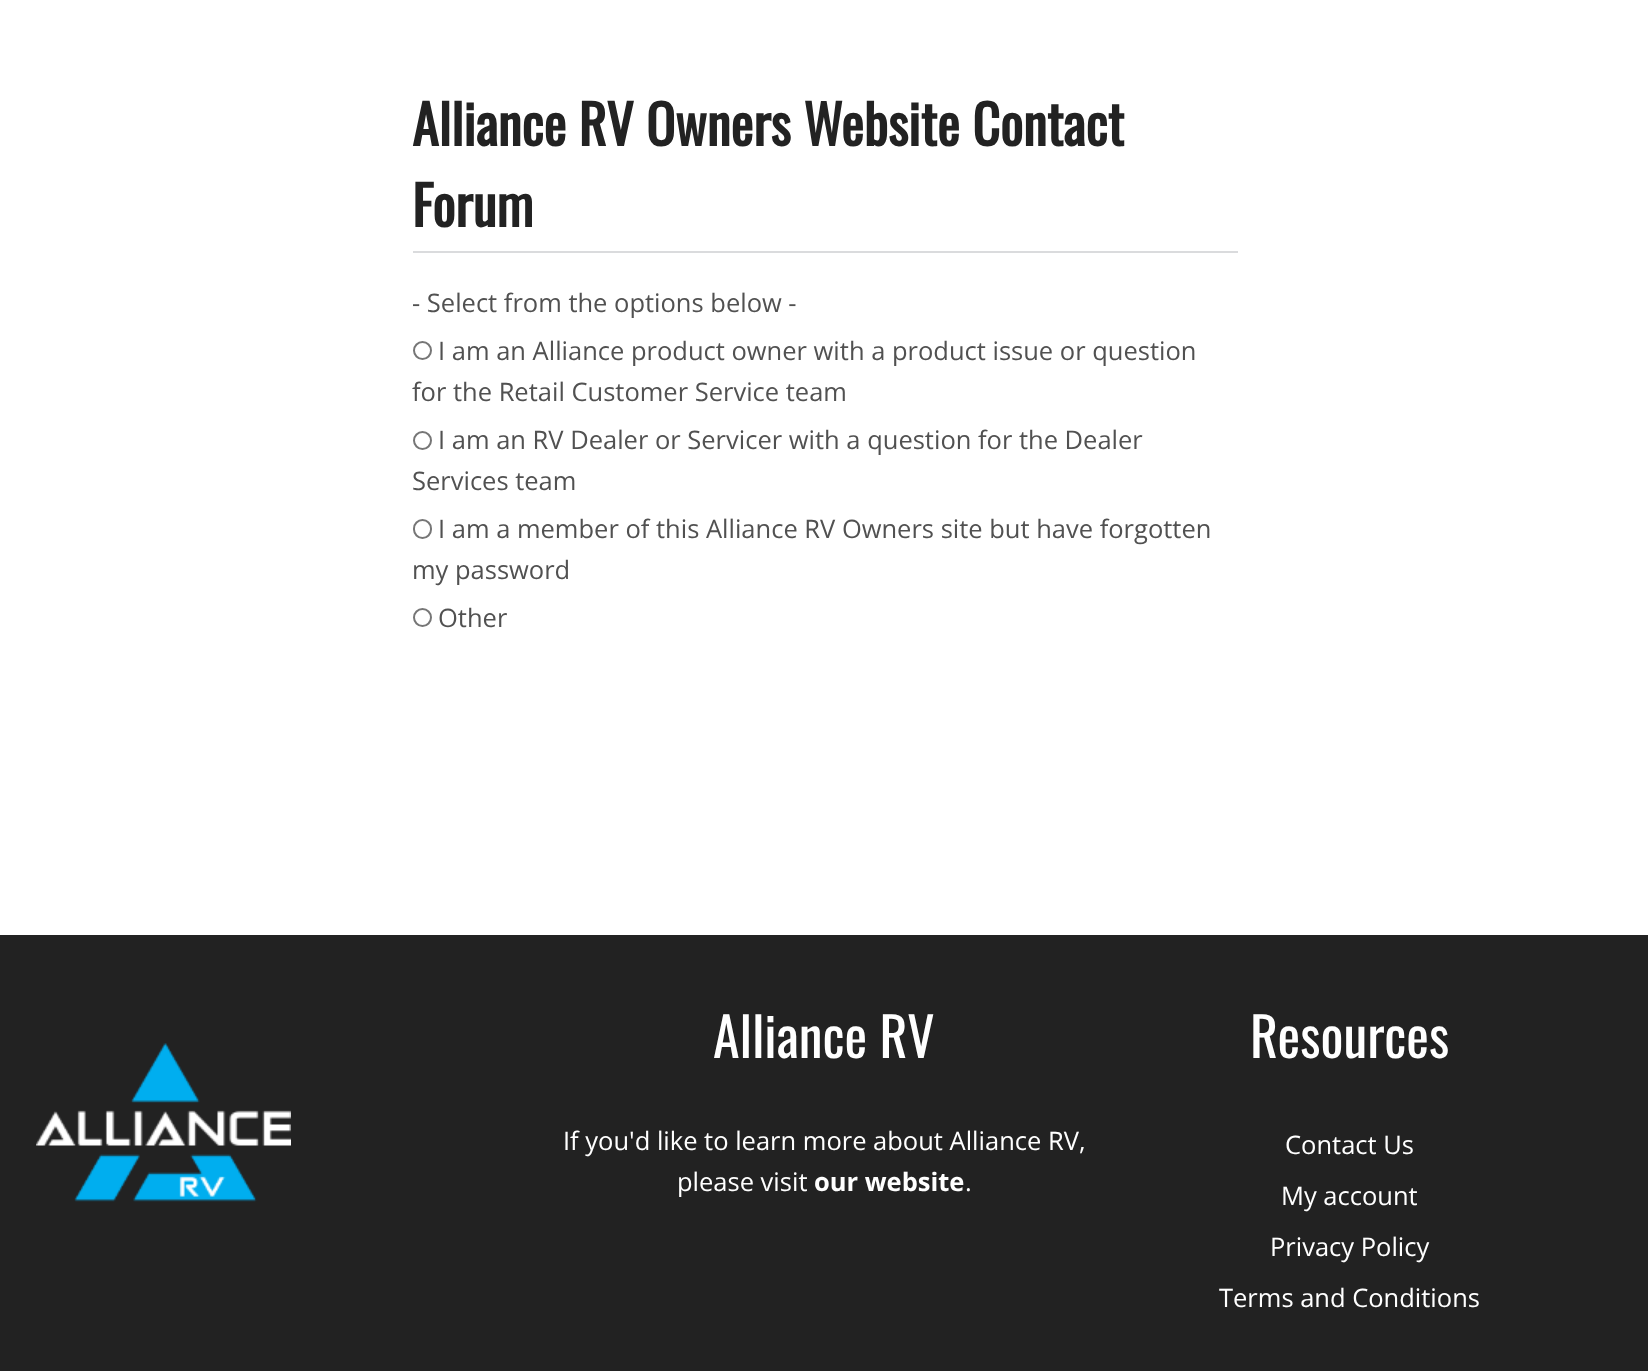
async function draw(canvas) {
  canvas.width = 1648;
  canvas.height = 1371;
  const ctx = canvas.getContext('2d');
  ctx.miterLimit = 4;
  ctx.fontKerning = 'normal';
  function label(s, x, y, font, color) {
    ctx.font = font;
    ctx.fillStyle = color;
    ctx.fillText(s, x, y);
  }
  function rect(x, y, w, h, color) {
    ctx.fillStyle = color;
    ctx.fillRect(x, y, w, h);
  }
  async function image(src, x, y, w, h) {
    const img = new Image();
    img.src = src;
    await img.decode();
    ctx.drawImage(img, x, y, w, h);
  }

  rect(0, 0, 1648, 1371, '#fff');
  label('Alliance RV Owners Website Contact', 412, 146, 'bold 54px Oswald', '#222');
  label('Forum', 412, 227, 'bold 54px Oswald', '#222');
  rect(413, 251, 825, 2, '#dadbdd');
  label('- Select from the options below -', 412, 312, '25.5px Open Sans', '#515151');
  ctx.beginPath();
  ctx.arc(422.5, 350.5, 8.5, 0, 2 * Math.PI);
  ctx.strokeStyle = '#767676';
  ctx.lineWidth = 2;
  ctx.stroke();
  label('I am an Alliance product owner with a product issue or question', 438, 360, '25.5px Open Sans', '#515151');
  label('for the Retail Customer Service team', 412, 401, '25.5px Open Sans', '#515151');
  ctx.beginPath();
  ctx.arc(422.5, 440.5, 8.5, 0, 2 * Math.PI);
  ctx.stroke();
  label('I am an RV Dealer or Servicer with a question for the Dealer', 438, 449, '25.5px Open Sans', '#515151');
  label('Services team', 412, 490, '25.5px Open Sans', '#515151');
  ctx.beginPath();
  ctx.roundRect(414, 520, 17, 18, 8.5);
  ctx.stroke();
  label('I am a member of this Alliance RV Owners site but have forgotten', 438, 538, '25.5px Open Sans', '#515151');
  label('my password', 412, 579, '25.5px Open Sans', '#515151');
  ctx.beginPath();
  ctx.arc(422.5, 617.5, 8.5, 0, 2 * Math.PI);
  ctx.stroke();
  label('Other', 438, 627, '25.5px Open Sans', '#515151');
  rect(0, 935, 1648, 436, '#222');
  await image('assets/img1.png', 36, 1043, 255, 159);
  label('Alliance RV', 713, 1058, '54px Oswald', '#fff');
  label('If you\'d like to learn more about Alliance RV,', 563, 1150, '25.5px Open Sans', '#fff');
  label('please visit', 677, 1191, '25.5px Open Sans', '#fff');
  label('our website', 814, 1191, 'bold 25.5px Open Sans', '#fff');
  label('.', 965, 1191, '25.5px Open Sans', '#fff');
  label('Resources', 1250, 1058, '54px Oswald', '#fff');
  label('Contact Us', 1285, 1154, '25.5px Open Sans', '#fff');
  label('My account', 1281, 1205, '25.5px Open Sans', '#fff');
  label('Privacy Policy', 1270, 1256, '25.5px Open Sans', '#fff');
  label('Terms and Conditions', 1219, 1307, '25.5px Open Sans', '#fff');
}

draw(document.querySelector('canvas'));
